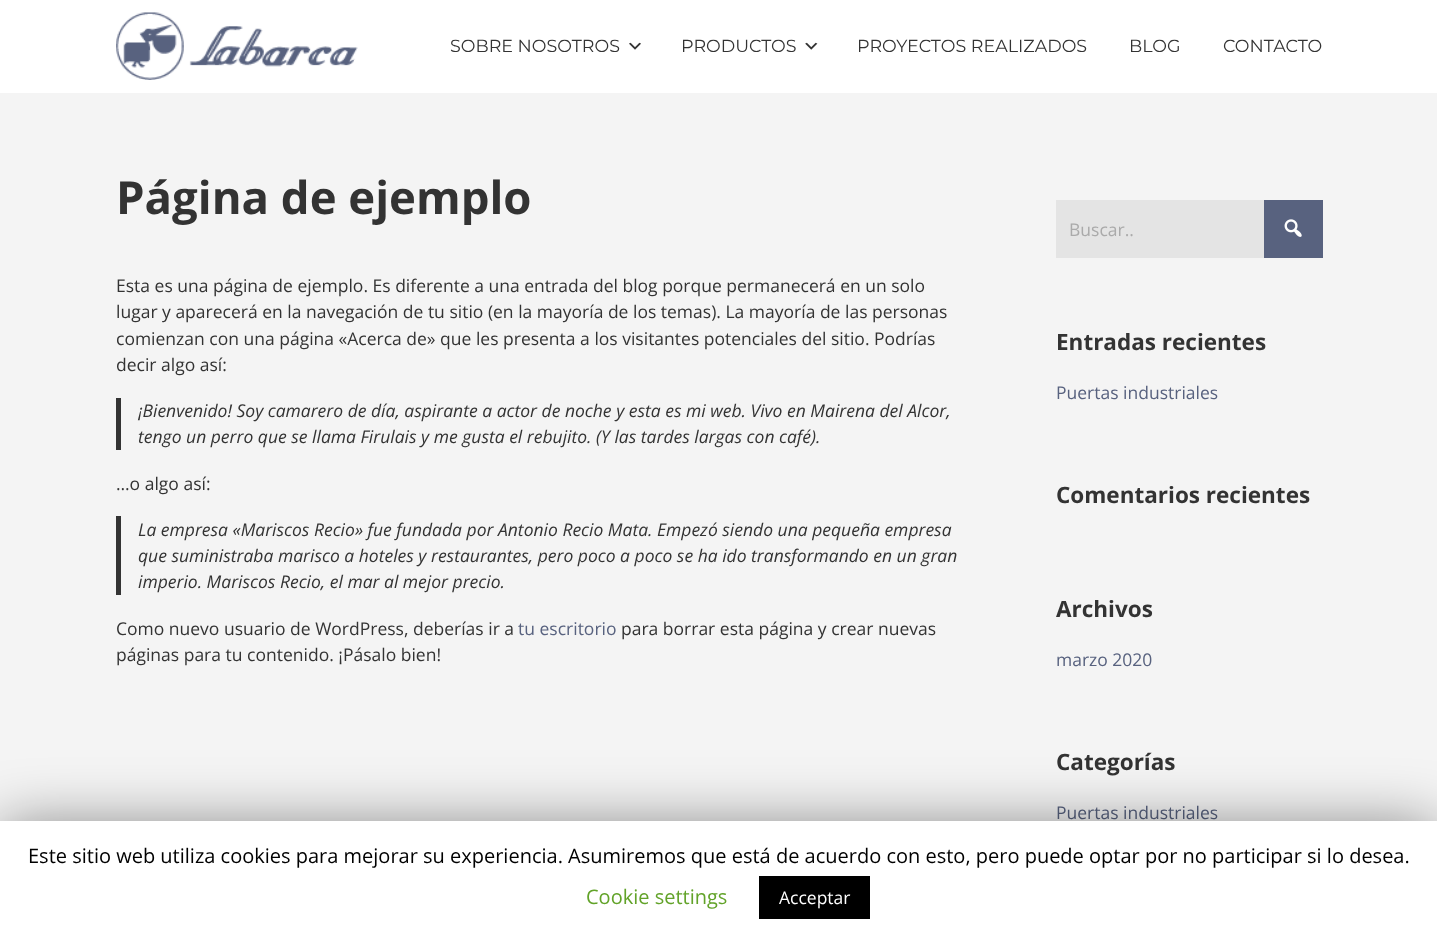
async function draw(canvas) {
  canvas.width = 1437;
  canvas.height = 941;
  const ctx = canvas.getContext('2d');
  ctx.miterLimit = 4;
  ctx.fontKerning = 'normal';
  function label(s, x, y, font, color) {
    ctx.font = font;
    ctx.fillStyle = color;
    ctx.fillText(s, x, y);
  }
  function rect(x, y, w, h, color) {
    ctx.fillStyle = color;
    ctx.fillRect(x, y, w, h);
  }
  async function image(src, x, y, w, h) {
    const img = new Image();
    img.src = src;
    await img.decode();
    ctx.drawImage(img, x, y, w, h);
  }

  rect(0, 0, 1437, 941, '#fff');
  await image('assets/img1.png', 116, 12, 242, 68);
  label('SOBRE NOSOTROS', 450, 52, '17.5px Montserrat', '#333');
  await image('assets/img2.png', 629, 42, 12, 8);
  label('PRODUCTOS', 681, 52, '17.5px Montserrat', '#333');
  await image('assets/img3.png', 805, 42, 13, 8);
  label('PROYECTOS REALIZADOS', 857, 52, '17.5px Montserrat', '#333');
  label('BLOG', 1129, 52, '17.5px Montserrat', '#333');
  label('CONTACTO', 1223, 52, '17.5px Montserrat', '#333');
  rect(0, 93, 1437, 728, '#f4f4f4');
  label('Página de ejemplo', 116, 214, 'bold 45.5px Open Sans', '#333');
  label('Esta es una página de ejemplo. Es diferente a una entrada del blog porque permanecerá en un solo', 116, 292, '17.5px Open Sans', '#333');
  label('lugar y aparecerá en la navegación de tu sitio (en la mayoría de los temas). La mayoría de las personas', 116, 318, '17.5px Open Sans', '#333');
  label('comienzan con una página «Acerca de» que les presenta a los visitantes potenciales del sitio. Podrías', 116, 345, '17.5px Open Sans', '#333');
  label('decir algo así:', 116, 371, '17.5px Open Sans', '#333');
  rect(116, 398, 5, 52, '#333');
  label('¡Bienvenido! Soy camarero de día, aspirante a actor de noche y esta es mi web. Vivo en Mairena del Alcor,', 138, 417, 'italic 17.5px Open Sans', '#333');
  label('tengo un perro que se llama Firulais y me gusta el rebujito. (Y las tardes largas con café).', 138, 443, 'italic 17.5px Open Sans', '#333');
  label('…o algo así:', 116, 490, '17.5px Open Sans', '#333');
  rect(116, 516, 5, 79, '#333');
  label('La empresa «Mariscos Recio» fue fundada por Antonio Recio Mata. Empezó siendo una pequeña empresa', 138, 536, 'italic 17.5px Open Sans', '#333');
  label('que suministraba marisco a hoteles y restaurantes, pero poco a poco se ha ido transformando en un gran', 138, 562, 'italic 17.5px Open Sans', '#333');
  label('imperio. Mariscos Recio, el mar al mejor precio.', 138, 588, 'italic 17.5px Open Sans', '#333');
  label('Como nuevo usuario de WordPress, deberías ir a', 116, 635, '17.5px Open Sans', '#333');
  label('tu escritorio', 518, 635, '17.5px Open Sans', '#58627f');
  label('para borrar esta página y crear nuevas', 621, 635, '17.5px Open Sans', '#333');
  label('páginas para tu contenido. ¡Pásalo bien!', 116, 661, '17.5px Open Sans', '#333');
  rect(1056, 200, 208, 58, '#e4e4e4');
  label('Buscar..', 1069, 236, '17.5px Open Sans', '#aaa');
  rect(1264, 200, 59, 58, '#58627f');
  await image('assets/img4.png', 1284, 219, 18, 18);
  label('Entradas recientes', 1056, 350, 'bold 22.5px Open Sans', '#333');
  label('Puertas industriales', 1056, 399, '17.5px Open Sans', '#58627f');
  label('Comentarios recientes', 1056, 503, 'bold 22.5px Open Sans', '#333');
  label('Archivos', 1056, 617, 'bold 22.5px Open Sans', '#333');
  label('marzo 2020', 1056, 666, '17.5px Open Sans', '#58627f');
  label('Categorías', 1056, 770, 'bold 22.5px Open Sans', '#333');
  label('Puertas industriales', 1056, 819, '17.5px Open Sans', '#58627f');
  ctx.fillStyle = '#00000080';
  ctx.filter = 'blur(31px)';
  ctx.beginPath();
  ctx.rect(0, 828, 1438, 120);
  ctx.fill();
  ctx.filter = 'none';
  rect(0, 821, 1437, 120, '#fff');
  label('Este sitio web utiliza cookies para mejorar su experiencia. Asumiremos que está de acuerdo con esto, pero puede optar por no participar si lo desea.', 28, 863, '20px Open Sans', '#000');
  label('Cookie settings', 586, 904, '20px Open Sans', '#62a329');
  rect(759, 876, 111, 43, '#000');
  label('Acceptar', 779, 904, '17.5px Open Sans', '#fff');
}

draw(document.querySelector('canvas'));
